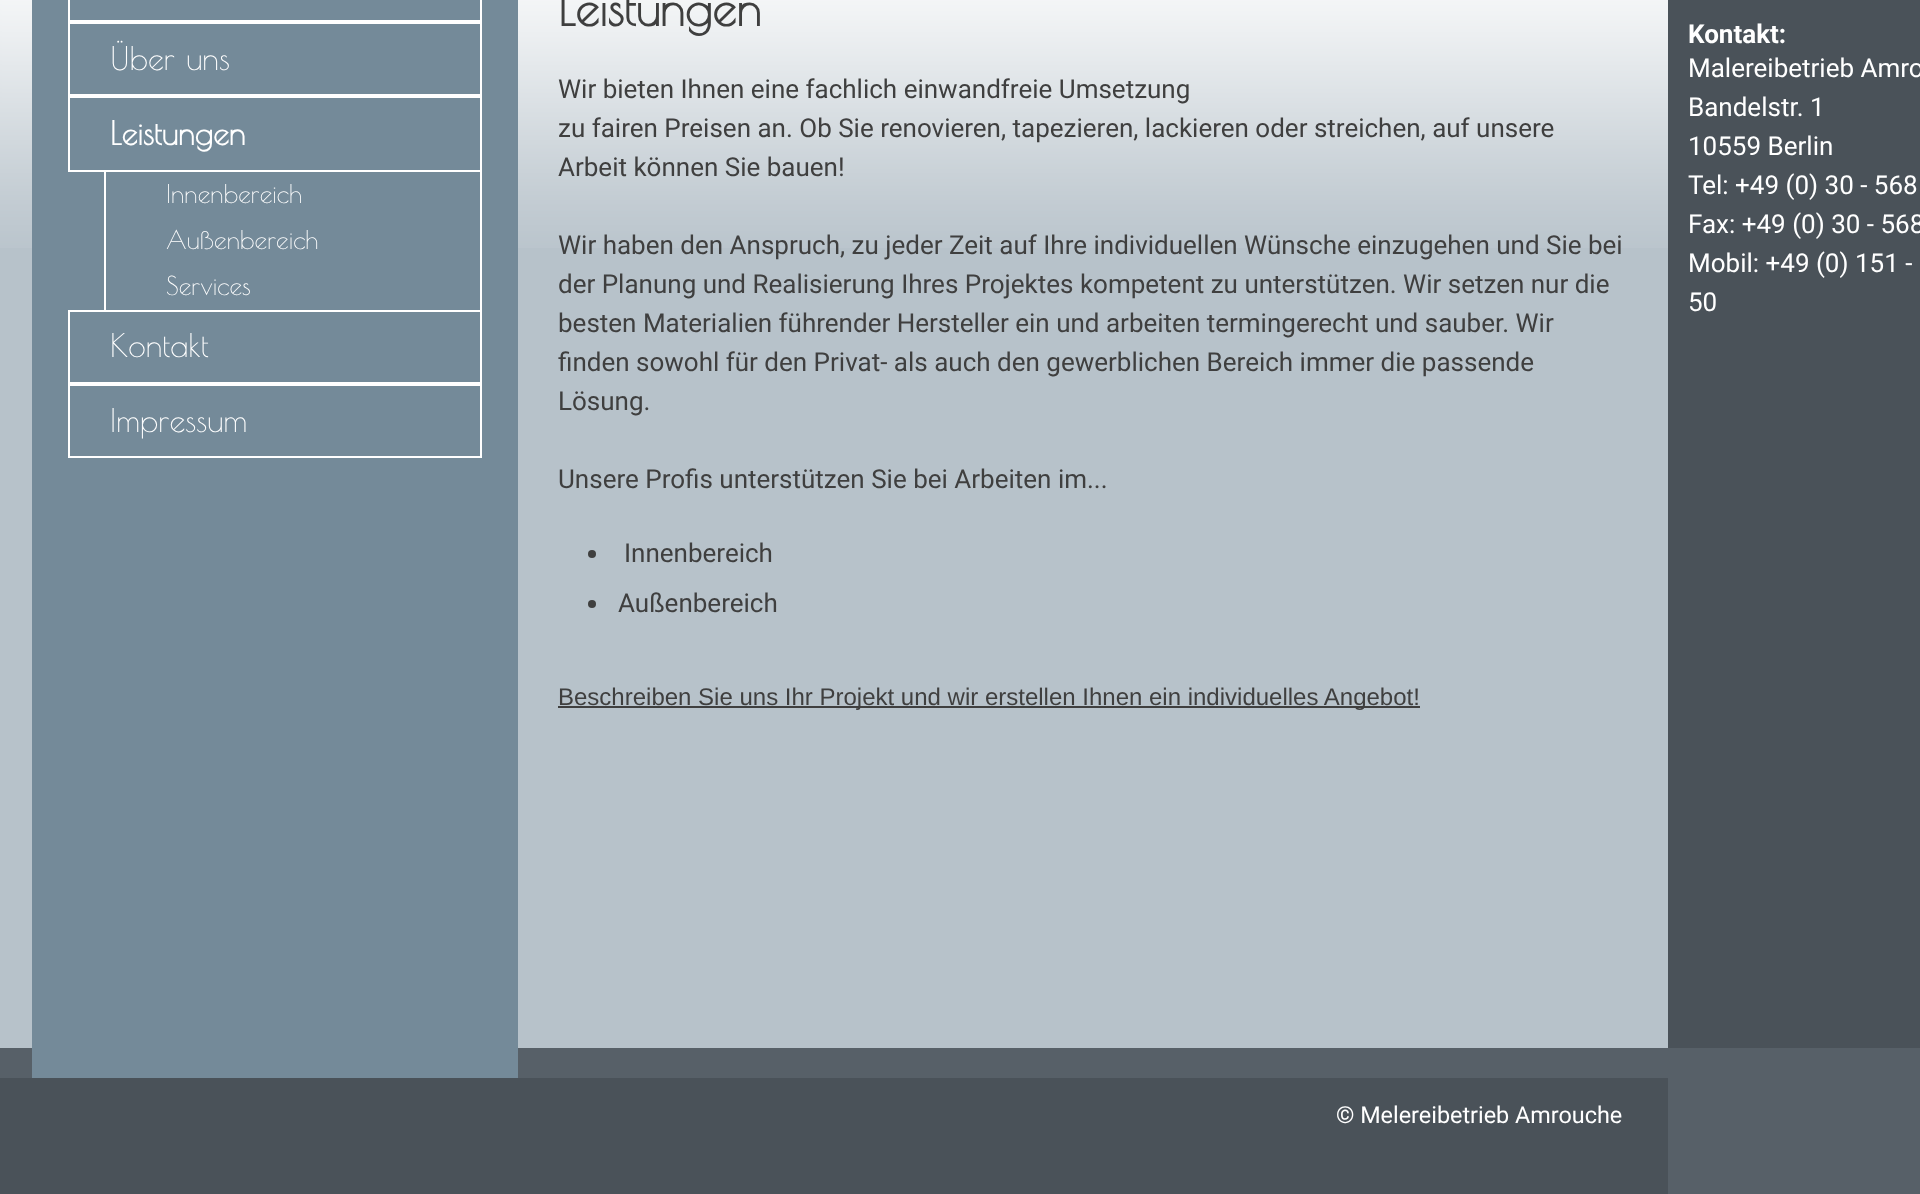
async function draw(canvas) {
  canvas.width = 1920;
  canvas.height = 1194;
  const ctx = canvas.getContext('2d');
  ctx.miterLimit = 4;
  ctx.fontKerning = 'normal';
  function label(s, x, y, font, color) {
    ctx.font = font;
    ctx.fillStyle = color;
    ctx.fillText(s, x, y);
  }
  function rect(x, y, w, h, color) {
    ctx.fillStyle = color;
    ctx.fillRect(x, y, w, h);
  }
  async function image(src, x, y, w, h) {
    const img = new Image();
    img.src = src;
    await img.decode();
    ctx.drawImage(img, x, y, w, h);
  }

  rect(0, 0, 1920, 1194, '#576068');
  rect(0, 0, 32, 1048, '#b7c2ca');
  await image('assets/img1.png', 0, 0, 32, 248);
  rect(32, 0, 486, 1078, '#748a99');
  ctx.strokeStyle = '#fff';
  ctx.lineWidth = 2;
  ctx.strokeRect(69, -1, 412, 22);
  ctx.strokeRect(69, 23, 412, 72);
  label('Über uns', 110, 70, '32px Poiret One', '#fff');
  ctx.strokeRect(69, 97, 412, 74);
  label('Leistungen', 110, 145, 'bold 32px Poiret One', '#fff');
  rect(480, 172, 2, 138, '#fff');
  rect(104, 172, 2, 138, '#fff');
  label('Innenbereich', 166, 203, '25.5px Poiret One', '#fff');
  label('Außenbereich', 166, 249, '25.5px Poiret One', '#fff');
  label('Services', 166, 295, '25.5px Poiret One', '#fff');
  ctx.strokeRect(69, 311, 412, 72);
  label('Kontakt', 110, 357, '32px Poiret One', '#fff');
  ctx.strokeRect(69, 385, 412, 72);
  label('Impressum', 110, 432, '32px Poiret One', '#fff');
  rect(518, 0, 1150, 1048, '#b7c2ca');
  await image('assets/img2.png', 518, 0, 1150, 248);
  label('Leistungen', 558, 26, 'bold 48px Poiret One', '#3f3f3f');
  label('Wir bieten Ihnen eine fachlich einwandfreie Umsetzung', 558, 98, '26px Roboto', '#3f3f3f');
  label('zu fairen Preisen an. Ob Sie renovieren, tapezieren, lackieren oder streichen, auf unsere', 558, 137, '26px Roboto', '#3f3f3f');
  label('Arbeit können Sie bauen!', 558, 176, '26px Roboto', '#3f3f3f');
  label('Wir haben den Anspruch, zu jeder Zeit auf Ihre individuellen Wünsche einzugehen und Sie bei', 558, 254, '26px Roboto', '#3f3f3f');
  label('der Planung und Realisierung Ihres Projektes kompetent zu unterstützen. Wir setzen nur die', 558, 293, '26px Roboto', '#3f3f3f');
  label('besten Materialien führender Hersteller ein und arbeiten termingerecht und sauber. Wir', 558, 332, '26px Roboto', '#3f3f3f');
  label('finden sowohl für den Privat- als auch den gewerblichen Bereich immer die passende', 558, 371, '26px Roboto', '#3f3f3f');
  label('Lösung.', 558, 410, '26px Roboto', '#3f3f3f');
  label('Unsere Profis unterstützen Sie bei Arbeiten im...', 558, 488, '26px Roboto', '#3f3f3f');
  ctx.beginPath();
  ctx.arc(592, 554, 4, 0, 2 * Math.PI);
  ctx.fill();
  label('Innenbereich', 624, 562, '26px Roboto', '#3f3f3f');
  ctx.beginPath();
  ctx.arc(592, 604, 4, 0, 2 * Math.PI);
  ctx.fill();
  label('Außenbereich', 618, 612, '26px Roboto', '#3f3f3f');
  rect(558, 706, 862, 2, '#3f3f3f');
  label('Beschreiben Sie uns Ihr Projekt und wir erstellen Ihnen ein individuelles Angebot!', 558, 705, '24px Liberation Sans', '#3f3f3f');
  rect(1668, 0, 252, 1048, '#4a5259');
  label('Kontakt:', 1688, 43, 'bold 26px Roboto', '#fff');
  label('Malereibetrieb Amro', 1688, 77, '26px Roboto', '#fff');
  label('Bandelstr. 1', 1688, 116, '26px Roboto', '#fff');
  label('10559 Berlin', 1688, 155, '26px Roboto', '#fff');
  label('Tel: +49 (0) 30 - 568', 1688, 194, '26px Roboto', '#fff');
  label('Fax: +49 (0) 30 - 568', 1688, 233, '26px Roboto', '#fff');
  label('Mobil: +49 (0) 151 -', 1688, 272, '26px Roboto', '#fff');
  label('50', 1688, 311, '26px Roboto', '#fff');
  rect(0, 1078, 1668, 116, '#4a5259');
  label('© Melereibetrieb Amrouche', 1336, 1123, '23.4px Roboto', '#fff');
}

draw(document.querySelector('canvas'));
